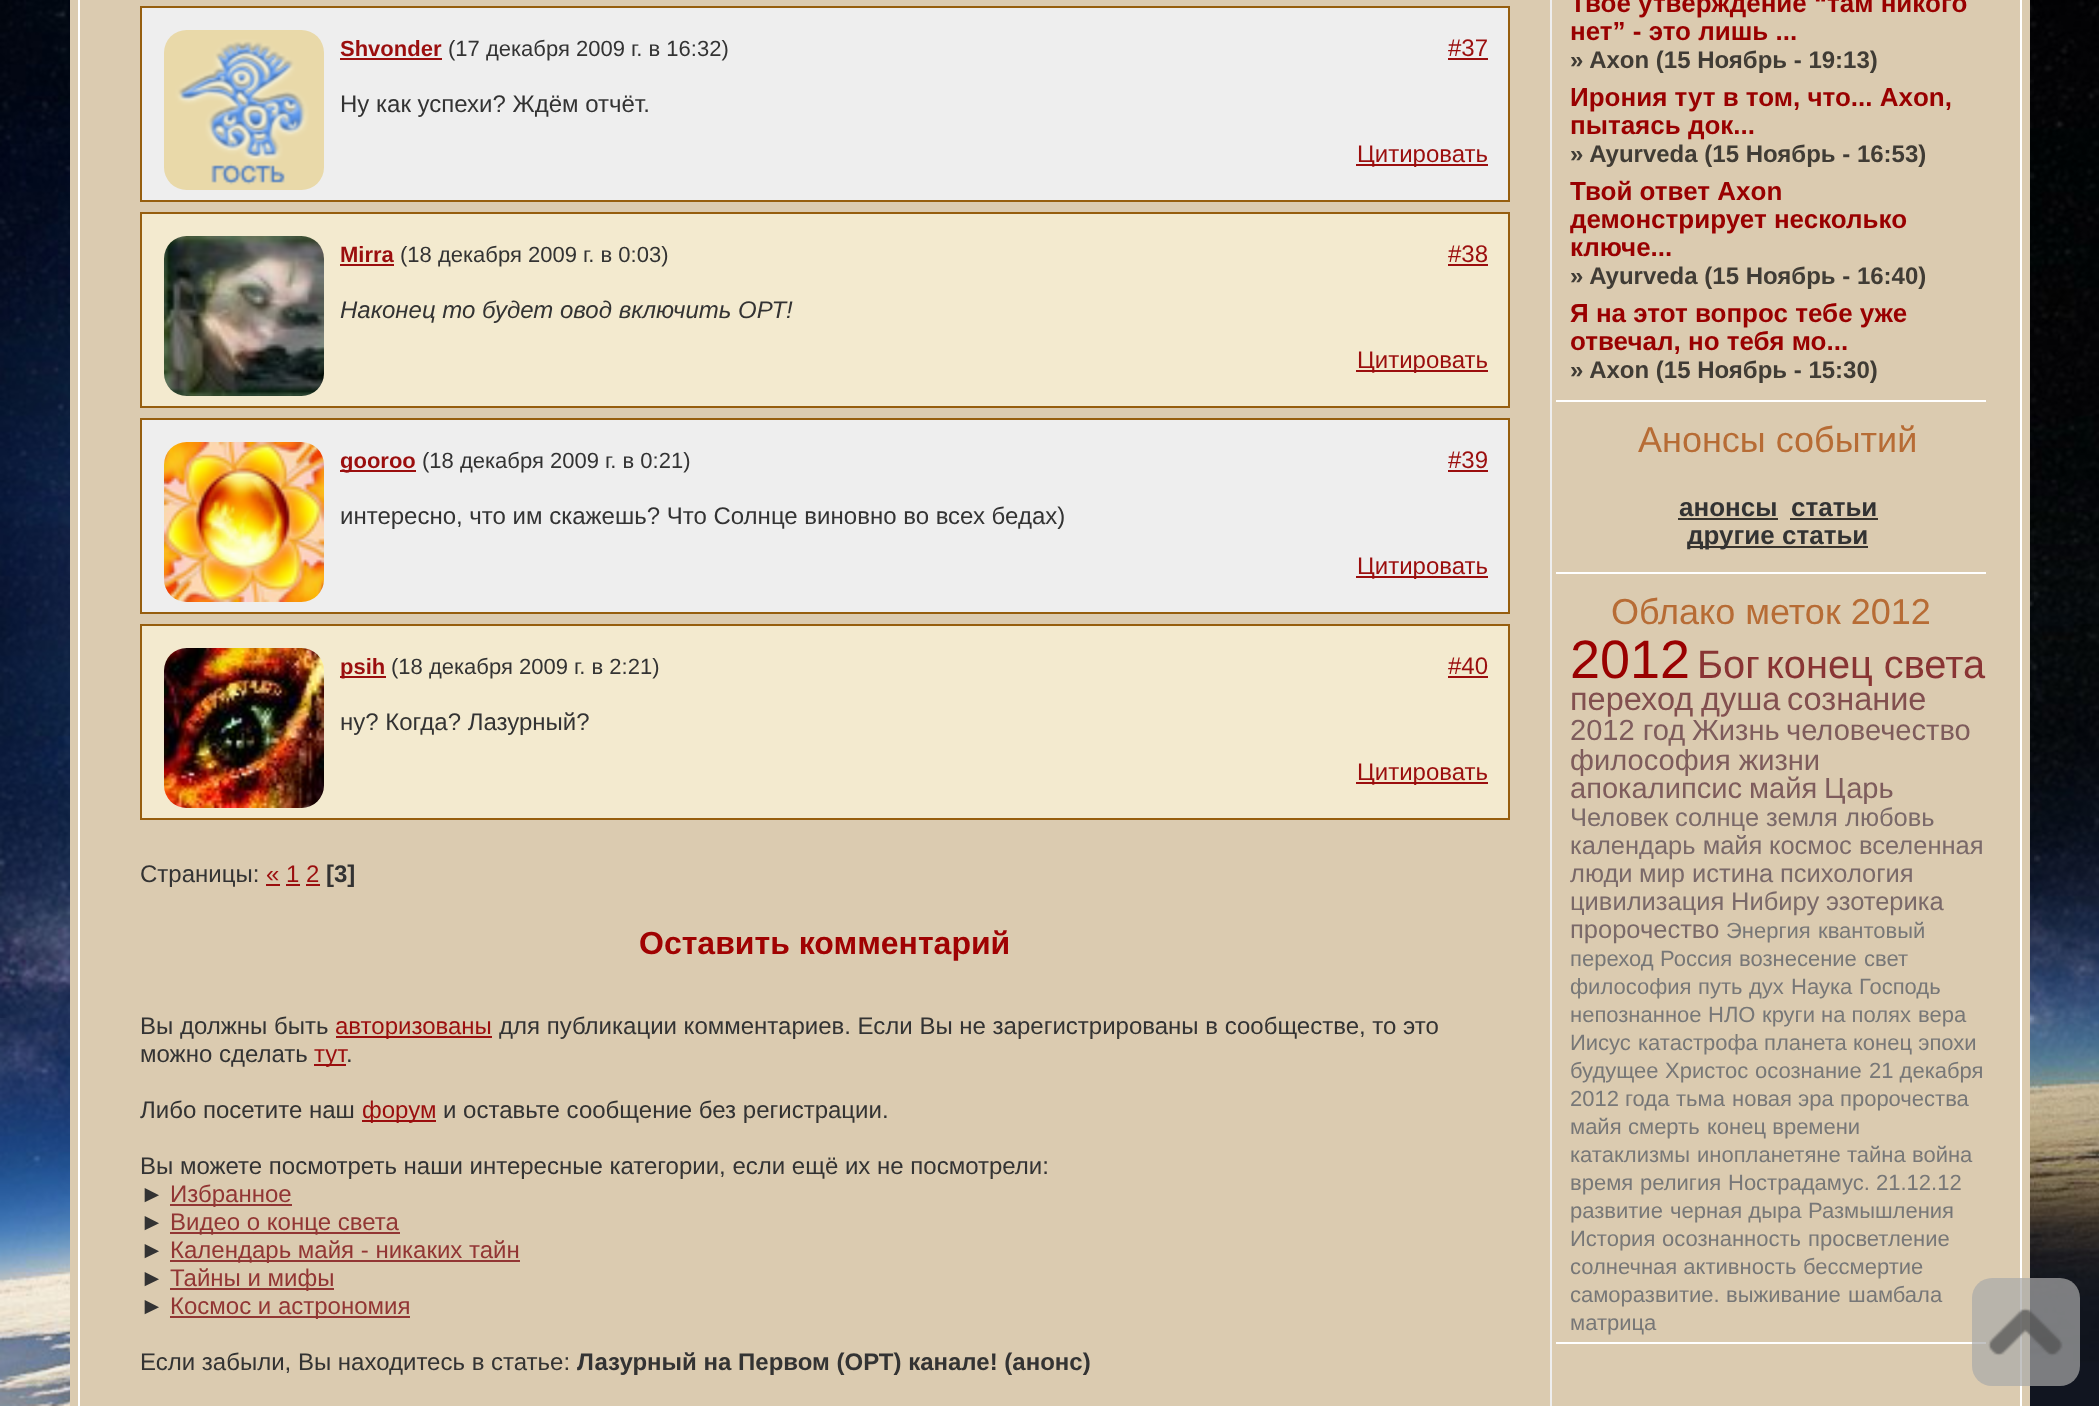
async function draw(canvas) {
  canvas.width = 2099;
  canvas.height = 1406;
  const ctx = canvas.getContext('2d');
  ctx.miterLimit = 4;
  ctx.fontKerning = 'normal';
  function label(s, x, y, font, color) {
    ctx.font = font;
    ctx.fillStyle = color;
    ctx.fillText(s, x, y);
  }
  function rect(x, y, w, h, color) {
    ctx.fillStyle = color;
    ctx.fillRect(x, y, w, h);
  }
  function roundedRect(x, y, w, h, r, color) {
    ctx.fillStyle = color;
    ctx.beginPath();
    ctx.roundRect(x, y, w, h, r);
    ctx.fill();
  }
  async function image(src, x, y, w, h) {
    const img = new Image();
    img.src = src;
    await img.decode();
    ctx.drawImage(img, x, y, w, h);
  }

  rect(0, 0, 2099, 1406, '#fff');
  await image('assets/img1.png', 0, 0, 2099, 1406);
  rect(70, 0, 1960, 1406, '#dbcbb0');
  ctx.strokeStyle = '#fff';
  ctx.lineWidth = 2;
  ctx.strokeRect(79, -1, 1942, 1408);
  ctx.fillStyle = '#eee';
  ctx.beginPath();
  ctx.rect(141, 7, 1368, 194);
  ctx.fill();
  ctx.strokeStyle = '#965e0e';
  ctx.stroke();
  await image('assets/img2.png', 164, 30, 160, 160);
  label('Shvonder', 340, 56, 'bold 22px Liberation Sans', '#9b0e0e');
  rect(340, 58, 102, 2, '#9b0e0e');
  label('(17 декабря 2009 г. в 16:32)', 448, 56, '22px Liberation Sans', '#333');
  label('#37', 1448, 56, '24px Liberation Sans', '#9b0e0e');
  rect(1448, 58, 40, 2, '#9b0e0e');
  label('Ну как успехи? Ждём отчёт.', 340, 112, '24px Liberation Sans', '#333');
  rect(1356, 164, 132, 2, '#9b0e0e');
  label('Цитировать', 1357, 162, '24px Liberation Sans', '#9b0e0e');
  ctx.fillStyle = '#f3eacf';
  ctx.beginPath();
  ctx.rect(141, 213, 1368, 194);
  ctx.fill();
  ctx.stroke();
  await image('assets/img3.png', 164, 236, 160, 160);
  label('Mirra', 340, 262, 'bold 22px Liberation Sans', '#9b0e0e');
  rect(340, 264, 54, 2, '#9b0e0e');
  label('(18 декабря 2009 г. в 0:03)', 400, 262, '22px Liberation Sans', '#333');
  label('#38', 1448, 262, '24px Liberation Sans', '#9b0e0e');
  rect(1448, 264, 40, 2, '#9b0e0e');
  label('Наконец то будет овод включить ОРТ!', 340, 318, 'italic 24px Liberation Sans', '#333');
  rect(1356, 370, 132, 2, '#9b0e0e');
  label('Цитировать', 1357, 368, '24px Liberation Sans', '#9b0e0e');
  ctx.fillStyle = '#eee';
  ctx.beginPath();
  ctx.rect(141, 419, 1368, 194);
  ctx.fill();
  ctx.stroke();
  await image('assets/img4.png', 164, 442, 160, 160);
  rect(340, 470, 76, 2, '#9b0e0e');
  label('gooroo', 340, 468, 'bold 22px Liberation Sans', '#9b0e0e');
  label('(18 декабря 2009 г. в 0:21)', 422, 468, '22px Liberation Sans', '#333');
  label('#39', 1448, 468, '24px Liberation Sans', '#9b0e0e');
  rect(1448, 470, 40, 2, '#9b0e0e');
  label('интересно, что им скажешь? Что Солнце виновно во всех бедах)', 340, 524, '24px Liberation Sans', '#333');
  rect(1356, 576, 132, 2, '#9b0e0e');
  label('Цитировать', 1357, 574, '24px Liberation Sans', '#9b0e0e');
  ctx.fillStyle = '#f3eacf';
  ctx.beginPath();
  ctx.rect(141, 625, 1368, 194);
  ctx.fill();
  ctx.stroke();
  await image('assets/img5.png', 164, 648, 160, 160);
  rect(340, 676, 46, 2, '#9b0e0e');
  label('psih', 340, 674, 'bold 22px Liberation Sans', '#9b0e0e');
  label('(18 декабря 2009 г. в 2:21)', 391, 674, '22px Liberation Sans', '#333');
  label('#40', 1448, 674, '24px Liberation Sans', '#9b0e0e');
  rect(1448, 676, 40, 2, '#9b0e0e');
  label('ну? Когда? Лазурный?', 340, 730, '24px Liberation Sans', '#333');
  rect(1356, 782, 132, 2, '#9b0e0e');
  label('Цитировать', 1357, 780, '24px Liberation Sans', '#9b0e0e');
  label('Страницы:', 140, 882, '24px Liberation Sans', '#333');
  label('« 1 2', 266, 882, '24px Liberation Sans', '#9b0e0e');
  rect(266, 884, 14, 2, '#9b0e0e');
  label('[3]', 326, 882, 'bold 24px Liberation Sans', '#333');
  rect(286, 884, 14, 2, '#9b0e0e');
  rect(306, 884, 14, 2, '#9b0e0e');
  label('Оставить комментарий', 639, 954, 'bold 32px Liberation Sans', '#a00202');
  label('Вы должны быть', 140, 1034, '24px Liberation Sans', '#333');
  rect(336, 1036, 156, 2, '#9b0e0e');
  label('авторизованы', 335, 1034, '24px Liberation Sans', '#9b0e0e');
  label('для публикации комментариев. Если Вы не зарегистрированы в сообществе, то это', 499, 1034, '24px Liberation Sans', '#333');
  label('можно сделать', 140, 1062, '24px Liberation Sans', '#333');
  rect(314, 1064, 32, 2, '#9b0e0e');
  label('тут', 314, 1062, '24px Liberation Sans', '#9b0e0e');
  label('.', 346, 1062, '24px Liberation Sans', '#333');
  label('Либо посетите наш', 140, 1118, '24px Liberation Sans', '#333');
  rect(362, 1120, 74, 2, '#9b0e0e');
  label('форум', 362, 1118, '24px Liberation Sans', '#9b0e0e');
  label('и оставьте сообщение без регистрации.', 443, 1118, '24px Liberation Sans', '#333');
  label('Вы можете посмотреть наши интересные категории, если ещё их не посмотрели:', 140, 1174, '24px Liberation Sans', '#333');
  label('►', 140, 1202, '24px Liberation Sans', '#333');
  rect(170, 1204, 122, 2, '#923634');
  label('Избранное', 170, 1202, '24px Liberation Sans', '#923634');
  label('►', 140, 1230, '24px Liberation Sans', '#333');
  rect(170, 1232, 230, 2, '#923634');
  label('Видео о конце света', 170, 1230, '24px Liberation Sans', '#923634');
  label('►', 140, 1258, '24px Liberation Sans', '#333');
  rect(170, 1260, 350, 2, '#923634');
  label('Календарь майя - никаких тайн', 170, 1258, '24px Liberation Sans', '#923634');
  label('►', 140, 1286, '24px Liberation Sans', '#333');
  rect(170, 1288, 164, 2, '#923634');
  label('Тайны и мифы', 170, 1286, '24px Liberation Sans', '#923634');
  label('►', 140, 1314, '24px Liberation Sans', '#333');
  rect(170, 1316, 240, 2, '#923634');
  label('Космос и астрономия', 170, 1314, '24px Liberation Sans', '#923634');
  label('Если забыли, Вы находитесь в статье:', 140, 1370, '24px Liberation Sans', '#333');
  label('Лазурный на Первом (ОРТ) канале! (анонс)', 577, 1370, 'bold 24px Liberation Sans', '#333');
  rect(1550, 0, 2, 1406, '#eee');
  rect(1556, 400, 430, 2, '#fff');
  label('Твоё утверждение “там никого', 1570, 12, 'bold 26px Liberation Sans', '#900');
  label('нет” - это лишь ...', 1570, 40, 'bold 26px Liberation Sans', '#900');
  label('» Axon (15 Ноябрь - 19:13)', 1570, 68, 'bold 24px Liberation Sans', '#403c35');
  label('Ирония тут в том, что... Axon,', 1570, 106, 'bold 26px Liberation Sans', '#900');
  label('пытаясь док...', 1570, 134, 'bold 26px Liberation Sans', '#900');
  label('» Ayurveda (15 Ноябрь - 16:53)', 1570, 162, 'bold 24px Liberation Sans', '#403c35');
  label('Твой ответ Axon', 1570, 200, 'bold 26px Liberation Sans', '#900');
  label('демонстрирует несколько', 1570, 228, 'bold 26px Liberation Sans', '#900');
  label('ключе...', 1570, 256, 'bold 26px Liberation Sans', '#900');
  label('» Ayurveda (15 Ноябрь - 16:40)', 1570, 284, 'bold 24px Liberation Sans', '#403c35');
  label('Я на этот вопрос тебе уже', 1570, 322, 'bold 26px Liberation Sans', '#900');
  label('отвечал, но тебя мо...', 1570, 350, 'bold 26px Liberation Sans', '#900');
  label('» Axon (15 Ноябрь - 15:30)', 1570, 378, 'bold 24px Liberation Sans', '#403c35');
  rect(1556, 572, 430, 2, '#fff');
  label('Анонсы событий', 1638, 452, '36px Liberation Sans', '#b76c35');
  label('анонсы', 1679, 516, 'bold 26px Liberation Sans', '#333');
  rect(1678, 518, 100, 2, '#38342e');
  label('статьи', 1791, 516, 'bold 26px Liberation Sans', '#333');
  rect(1790, 518, 88, 2, '#38342e');
  rect(1688, 546, 180, 2, '#38342e');
  label('другие статьи', 1687, 544, 'bold 26px Liberation Sans', '#333');
  label('Облако меток 2012', 1611, 624, '36px Liberation Sans', '#b76c35');
  rect(1556, 1342, 430, 2, '#fff');
  label('2012', 1570, 678, '54px Liberation Sans', '#900');
  label('Бог', 1697, 678, '39.75px Liberation Sans', '#893434');
  label('конец света', 1766, 678, '39.75px Liberation Sans', '#893434');
  label('переход', 1570, 710, '32.5px Liberation Sans', '#824f4f');
  label('душа', 1701, 710, '32.5px Liberation Sans', '#824f4f');
  label('сознание', 1787, 710, '32.5px Liberation Sans', '#824f4f');
  label('2012 год', 1570, 740, '29.1px Liberation Sans', '#7e5c5c');
  label('Жизнь', 1692, 740, '29.1px Liberation Sans', '#7e5c5c');
  label('человечество', 1786, 740, '29.1px Liberation Sans', '#7e5c5c');
  label('философия жизни', 1570, 770, '29.1px Liberation Sans', '#7e5c5c');
  label('апокалипсис', 1570, 798, '29.1px Liberation Sans', '#7e5c5c');
  label('майя', 1749, 798, '29.1px Liberation Sans', '#7e5c5c');
  label('Царь', 1824, 798, '29.1px Liberation Sans', '#7e5c5c');
  label('Человек', 1570, 826, '25.5px Liberation Sans', '#7a6969');
  label('солнце', 1675, 826, '25.5px Liberation Sans', '#7a6969');
  label('земля', 1766, 826, '25.5px Liberation Sans', '#7a6969');
  label('любовь', 1845, 826, '25.5px Liberation Sans', '#7a6969');
  label('календарь майя', 1570, 854, '25.5px Liberation Sans', '#7a6969');
  label('космос', 1769, 854, '25.5px Liberation Sans', '#7a6969');
  label('вселенная', 1859, 854, '25.5px Liberation Sans', '#7a6969');
  label('люди', 1570, 882, '25.5px Liberation Sans', '#7a6969');
  label('мир', 1639, 882, '25.5px Liberation Sans', '#7a6969');
  label('истина', 1692, 882, '25.5px Liberation Sans', '#7a6969');
  label('психология', 1780, 882, '25.5px Liberation Sans', '#7a6969');
  label('цивилизация', 1570, 910, '25.5px Liberation Sans', '#7a6969');
  label('Нибиру', 1731, 910, '25.5px Liberation Sans', '#7a6969');
  label('эзотерика', 1826, 910, '25.5px Liberation Sans', '#7a6969');
  label('пророчество', 1570, 938, '25.5px Liberation Sans', '#7a6969');
  label('Энергия', 1726, 938, '22px Liberation Sans', '#777');
  label('квантовый', 1818, 938, '22px Liberation Sans', '#777');
  label('переход', 1570, 966, '22px Liberation Sans', '#777');
  label('Россия', 1660, 966, '22px Liberation Sans', '#777');
  label('вознесение', 1739, 966, '22px Liberation Sans', '#777');
  label('свет', 1864, 966, '22px Liberation Sans', '#777');
  label('философия', 1570, 994, '22px Liberation Sans', '#777');
  label('путь', 1698, 994, '22px Liberation Sans', '#777');
  label('дух', 1749, 994, '22px Liberation Sans', '#777');
  label('Наука', 1791, 994, '22px Liberation Sans', '#777');
  label('Господь', 1859, 994, '22px Liberation Sans', '#777');
  label('непознанное', 1570, 1022, '22px Liberation Sans', '#777');
  label('НЛО', 1708, 1022, '22px Liberation Sans', '#777');
  label('круги на полях', 1762, 1022, '22px Liberation Sans', '#777');
  label('вера', 1918, 1022, '22px Liberation Sans', '#777');
  label('Иисус', 1570, 1050, '22px Liberation Sans', '#777');
  label('катастрофа', 1638, 1050, '22px Liberation Sans', '#777');
  label('планета', 1764, 1050, '22px Liberation Sans', '#777');
  label('конец эпохи', 1853, 1050, '22px Liberation Sans', '#777');
  label('будущее', 1570, 1078, '22px Liberation Sans', '#777');
  label('Христос', 1665, 1078, '22px Liberation Sans', '#777');
  label('осознание', 1755, 1078, '22px Liberation Sans', '#777');
  label('21 декабря', 1869, 1078, '22px Liberation Sans', '#777');
  label('2012 года', 1570, 1106, '22px Liberation Sans', '#777');
  label('тьма', 1676, 1106, '22px Liberation Sans', '#777');
  label('новая эра', 1732, 1106, '22px Liberation Sans', '#777');
  label('пророчества', 1840, 1106, '22px Liberation Sans', '#777');
  label('майя', 1570, 1134, '22px Liberation Sans', '#777');
  label('смерть', 1628, 1134, '22px Liberation Sans', '#777');
  label('конец времени', 1707, 1134, '22px Liberation Sans', '#777');
  label('катаклизмы', 1570, 1162, '22px Liberation Sans', '#777');
  label('инопланетяне', 1697, 1162, '22px Liberation Sans', '#777');
  label('тайна', 1847, 1162, '22px Liberation Sans', '#777');
  label('война', 1912, 1162, '22px Liberation Sans', '#777');
  label('время', 1570, 1190, '22px Liberation Sans', '#777');
  label('религия', 1640, 1190, '22px Liberation Sans', '#777');
  label('Нострадамус.', 1728, 1190, '22px Liberation Sans', '#777');
  label('21.12.12', 1876, 1190, '22px Liberation Sans', '#777');
  label('развитие', 1570, 1218, '22px Liberation Sans', '#777');
  label('черная дыра', 1670, 1218, '22px Liberation Sans', '#777');
  label('Размышления', 1808, 1218, '22px Liberation Sans', '#777');
  label('История', 1570, 1246, '22px Liberation Sans', '#777');
  label('осознанность', 1662, 1246, '22px Liberation Sans', '#777');
  label('просветление', 1808, 1246, '22px Liberation Sans', '#777');
  label('солнечная активность', 1570, 1274, '22px Liberation Sans', '#777');
  label('бессмертие', 1803, 1274, '22px Liberation Sans', '#777');
  label('саморазвитие.', 1570, 1302, '22px Liberation Sans', '#777');
  label('выживание', 1726, 1302, '22px Liberation Sans', '#777');
  label('шамбала', 1848, 1302, '22px Liberation Sans', '#777');
  label('матрица', 1570, 1330, '22px Liberation Sans', '#777');
  roundedRect(1972, 1278, 108, 108, 20, '#aaaaaab3');
  await image('assets/img6.png', 1988, 1308, 75, 48);
}

draw(document.querySelector('canvas'));
